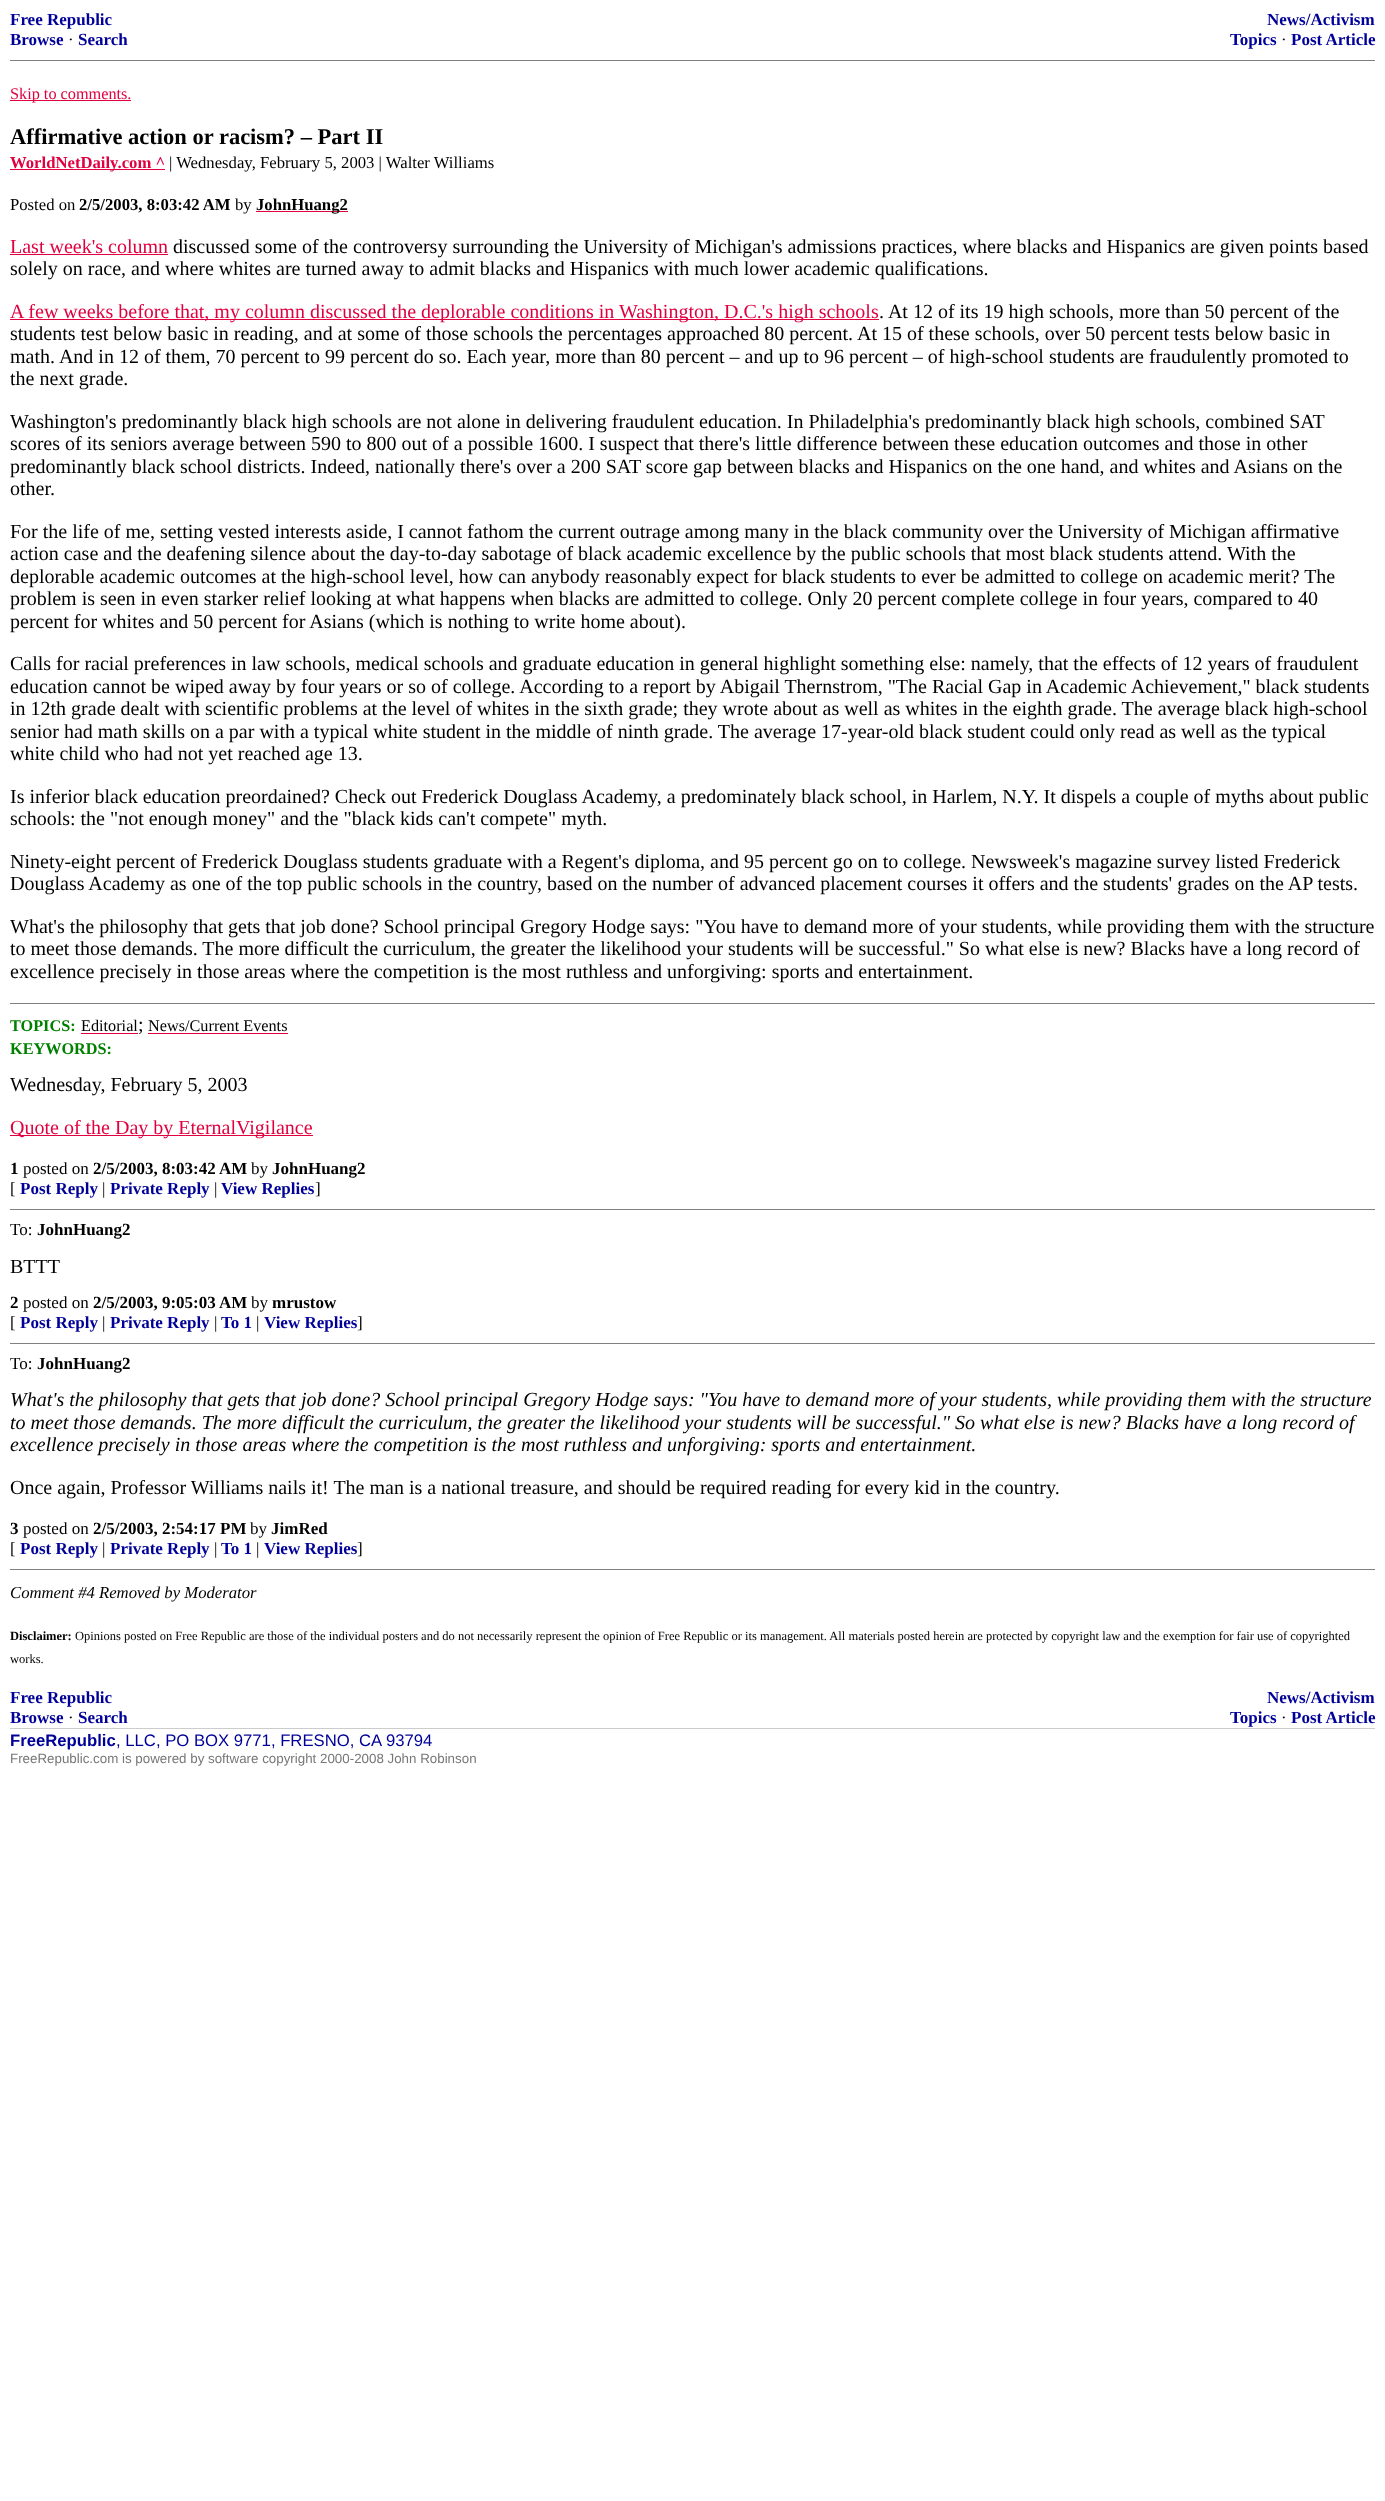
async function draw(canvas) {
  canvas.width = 1385;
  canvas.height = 2501;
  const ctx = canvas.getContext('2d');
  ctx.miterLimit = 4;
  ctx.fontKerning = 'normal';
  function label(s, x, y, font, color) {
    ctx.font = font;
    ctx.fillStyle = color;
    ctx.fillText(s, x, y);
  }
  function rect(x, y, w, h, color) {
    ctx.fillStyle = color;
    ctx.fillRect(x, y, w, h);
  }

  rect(0, 0, 1385, 2501, '#fff');
  label('Free Republic', 10, 25, 'bold 17px Liberation Serif', '#009');
  label('Browse', 10, 45, 'bold 17px Liberation Serif', '#009');
  label('·', 68, 45, '17px Liberation Serif', '#000');
  label('Search', 78, 45, 'bold 17px Liberation Serif', '#009');
  label('News/Activism', 1267, 25, 'bold 17px Liberation Serif', '#009');
  label('Topics', 1230, 45, 'bold 17px Liberation Serif', '#009');
  label('·', 1281, 45, '17px Liberation Serif', '#000');
  label('Post Article', 1291, 45, 'bold 17px Liberation Serif', '#009');
  rect(10, 60, 1365, 1, '#808080');
  rect(10, 100, 121, 1, '#e00040');
  label('Skip to comments.', 10, 99, '16.25px Liberation Serif', '#e00040');
  label('Affirmative action or racism? – Part II', 10, 144, 'bold 22.5px Liberation Serif', '#000');
  rect(10, 169, 155, 1, '#e00040');
  label('WorldNetDaily.com ^', 10, 168, 'bold 16.7px Liberation Serif', '#e00040');
  label('| Wednesday, February 5, 2003 | Walter Williams', 169, 168, '16.7px Liberation Serif', '#000');
  label('Posted on', 10, 210, '16.7px Liberation Serif', '#000');
  label('2/5/2003, 8:03:42 AM', 79, 210, 'bold 16.7px Liberation Serif', '#000');
  label('by', 235, 210, '16.7px Liberation Serif', '#000');
  rect(256, 211, 92, 1, '#e00040');
  label('JohnHuang2', 256, 210, 'bold 16.7px Liberation Serif', '#000');
  label('Last week\'s column', 10, 253, '20px Liberation Serif', '#e00040');
  rect(10, 254, 158, 1, '#e00040');
  label('discussed some of the controversy surrounding the University of Michigan\'s admissions practices, where blacks and Hispanics are given points based', 173, 253, '20px Liberation Serif', '#000');
  label('solely on race, and where whites are turned away to admit blacks and Hispanics with much lower academic qualifications.', 10, 275, '20px Liberation Serif', '#000');
  rect(10, 319, 869, 1, '#e00040');
  label('A few weeks before that, my column discussed the deplorable conditions in Washington, D.C.\'s high schools', 10, 318, '20px Liberation Serif', '#e00040');
  label('. At 12 of its 19 high schools, more than 50 percent of the', 879, 318, '20px Liberation Serif', '#000');
  label('students test below basic in reading, and at some of those schools the percentages approached 80 percent. At 15 of these schools, over 50 percent tests below basic in', 10, 340, '20px Liberation Serif', '#000');
  label('math. And in 12 of them, 70 percent to 99 percent do so. Each year, more than 80 percent – and up to 96 percent – of high-school students are fraudulently promoted to', 10, 363, '20px Liberation Serif', '#000');
  label('the next grade.', 10, 385, '20px Liberation Serif', '#000');
  label('Washington\'s predominantly black high schools are not alone in delivering fraudulent education. In Philadelphia\'s predominantly black high schools, combined SAT', 10, 428, '20px Liberation Serif', '#000');
  label('scores of its seniors average between 590 to 800 out of a possible 1600. I suspect that there\'s little difference between these education outcomes and those in other', 10, 450, '20px Liberation Serif', '#000');
  label('predominantly black school districts. Indeed, nationally there\'s over a 200 SAT score gap between blacks and Hispanics on the one hand, and whites and Asians on the', 10, 473, '20px Liberation Serif', '#000');
  label('other.', 10, 495, '20px Liberation Serif', '#000');
  label('For the life of me, setting vested interests aside, I cannot fathom the current outrage among many in the black community over the University of Michigan affirmative', 10, 538, '20px Liberation Serif', '#000');
  label('action case and the deafening silence about the day-to-day sabotage of black academic excellence by the public schools that most black students attend. With the', 10, 560, '20px Liberation Serif', '#000');
  label('deplorable academic outcomes at the high-school level, how can anybody reasonably expect for black students to ever be admitted to college on academic merit? The', 10, 583, '20px Liberation Serif', '#000');
  label('problem is seen in even starker relief looking at what happens when blacks are admitted to college. Only 20 percent complete college in four years, compared to 40', 10, 605, '20px Liberation Serif', '#000');
  label('percent for whites and 50 percent for Asians (which is nothing to write home about).', 10, 628, '20px Liberation Serif', '#000');
  label('Calls for racial preferences in law schools, medical schools and graduate education in general highlight something else: namely, that the effects of 12 years of fraudulent', 10, 670, '20px Liberation Serif', '#000');
  label('education cannot be wiped away by four years or so of college. According to a report by Abigail Thernstrom, "The Racial Gap in Academic Achievement," black students', 10, 693, '20px Liberation Serif', '#000');
  label('in 12th grade dealt with scientific problems at the level of whites in the sixth grade; they wrote about as well as whites in the eighth grade. The average black high-school', 10, 715, '20px Liberation Serif', '#000');
  label('senior had math skills on a par with a typical white student in the middle of ninth grade. The average 17-year-old black student could only read as well as the typical', 10, 738, '20px Liberation Serif', '#000');
  label('white child who had not yet reached age 13.', 10, 760, '20px Liberation Serif', '#000');
  label('Is inferior black education preordained? Check out Frederick Douglass Academy, a predominately black school, in Harlem, N.Y. It dispels a couple of myths about public', 10, 803, '20px Liberation Serif', '#000');
  label('schools: the "not enough money" and the "black kids can\'t compete" myth.', 10, 825, '20px Liberation Serif', '#000');
  label('Ninety-eight percent of Frederick Douglass students graduate with a Regent\'s diploma, and 95 percent go on to college. Newsweek\'s magazine survey listed Frederick', 10, 868, '20px Liberation Serif', '#000');
  label('Douglass Academy as one of the top public schools in the country, based on the number of advanced placement courses it offers and the students\' grades on the AP tests.', 10, 890, '20px Liberation Serif', '#000');
  label('What\'s the philosophy that gets that job done? School principal Gregory Hodge says: "You have to demand more of your students, while providing them with the structure', 10, 933, '20px Liberation Serif', '#000');
  label('to meet those demands. The more difficult the curriculum, the greater the likelihood your students will be successful." So what else is new? Blacks have a long record of', 10, 955, '20px Liberation Serif', '#000');
  label('excellence precisely in those areas where the competition is the most ruthless and unforgiving: sports and entertainment.', 10, 978, '20px Liberation Serif', '#000');
  rect(10, 1003, 1365, 1, '#808080');
  label('TOPICS:', 10, 1031, 'bold 16.25px Liberation Serif', '#008000');
  label('Editorial', 81, 1031, '16.25px Liberation Serif', '#000');
  rect(81, 1033, 57, 1, '#e00040');
  label(';', 138, 1031, '20px Liberation Serif', '#000');
  label('News/Current Events', 148, 1031, '16.25px Liberation Serif', '#000');
  rect(148, 1033, 140, 1, '#e00040');
  label('KEYWORDS:', 10, 1054, 'bold 16.25px Liberation Serif', '#008000');
  label('Wednesday, February 5, 2003', 10, 1091, '20px Liberation Serif', '#000');
  rect(10, 1135, 303, 1, '#e00040');
  label('Quote of the Day by EternalVigilance', 10, 1134, '20px Liberation Serif', '#e00040');
  label('1', 10, 1174, 'bold 17px Liberation Serif', '#000');
  label('posted on', 23, 1174, '17px Liberation Serif', '#000');
  label('2/5/2003, 8:03:42 AM', 93, 1174, 'bold 17px Liberation Serif', '#000');
  label('by', 251, 1174, '17px Liberation Serif', '#000');
  label('JohnHuang2', 272, 1174, 'bold 17px Liberation Serif', '#000');
  label('[', 10, 1194, '17px Liberation Serif', '#000');
  label('Post Reply', 20, 1194, 'bold 17px Liberation Serif', '#009');
  label('|', 102, 1194, '17px Liberation Serif', '#000');
  label('Private Reply', 110, 1194, 'bold 17px Liberation Serif', '#009');
  label('|', 214, 1194, '17px Liberation Serif', '#000');
  label('View Replies', 221, 1194, 'bold 17px Liberation Serif', '#009');
  label(']', 315, 1194, '17px Liberation Serif', '#000');
  rect(10, 1209, 1365, 1, '#808080');
  label('To:', 10, 1235, '17px Liberation Serif', '#000');
  label('JohnHuang2', 37, 1235, 'bold 17px Liberation Serif', '#000');
  label('BTTT', 10, 1273, '20px Liberation Serif', '#000');
  label('2', 10, 1308, 'bold 17px Liberation Serif', '#000');
  label('posted on', 23, 1308, '17px Liberation Serif', '#000');
  label('2/5/2003, 9:05:03 AM', 93, 1308, 'bold 17px Liberation Serif', '#000');
  label('by', 251, 1308, '17px Liberation Serif', '#000');
  label('mrustow', 272, 1308, 'bold 17px Liberation Serif', '#000');
  label('[', 10, 1328, '17px Liberation Serif', '#000');
  label('Post Reply', 20, 1328, 'bold 17px Liberation Serif', '#009');
  label('|', 102, 1328, '17px Liberation Serif', '#000');
  label('Private Reply', 110, 1328, 'bold 17px Liberation Serif', '#009');
  label('|', 214, 1328, '17px Liberation Serif', '#000');
  label('To 1', 221, 1328, 'bold 17px Liberation Serif', '#009');
  label('|', 256, 1328, '17px Liberation Serif', '#000');
  label('View Replies', 264, 1328, 'bold 17px Liberation Serif', '#009');
  label(']', 357, 1328, '17px Liberation Serif', '#000');
  rect(10, 1343, 1365, 1, '#808080');
  label('To:', 10, 1369, '17px Liberation Serif', '#000');
  label('JohnHuang2', 37, 1369, 'bold 17px Liberation Serif', '#000');
  label('What\'s the philosophy that gets that job done? School principal Gregory Hodge says: "You have to demand more of your students, while providing them with the structure', 10, 1406, 'italic 20px Liberation Serif', '#000');
  label('to meet those demands. The more difficult the curriculum, the greater the likelihood your students will be successful." So what else is new? Blacks have a long record of', 10, 1429, 'italic 20px Liberation Serif', '#000');
  label('excellence precisely in those areas where the competition is the most ruthless and unforgiving: sports and entertainment.', 10, 1451, 'italic 20px Liberation Serif', '#000');
  label('Once again, Professor Williams nails it! The man is a national treasure, and should be required reading for every kid in the country.', 10, 1494, '20px Liberation Serif', '#000');
  label('3', 10, 1534, 'bold 17px Liberation Serif', '#000');
  label('posted on', 23, 1534, '17px Liberation Serif', '#000');
  label('2/5/2003, 2:54:17 PM', 93, 1534, 'bold 17px Liberation Serif', '#000');
  label('by', 250, 1534, '17px Liberation Serif', '#000');
  label('JimRed', 271, 1534, 'bold 17px Liberation Serif', '#000');
  label('[', 10, 1554, '17px Liberation Serif', '#000');
  label('Post Reply', 20, 1554, 'bold 17px Liberation Serif', '#009');
  label('|', 102, 1554, '17px Liberation Serif', '#000');
  label('Private Reply', 110, 1554, 'bold 17px Liberation Serif', '#009');
  label('|', 214, 1554, '17px Liberation Serif', '#000');
  label('To 1', 221, 1554, 'bold 17px Liberation Serif', '#009');
  label('|', 256, 1554, '17px Liberation Serif', '#000');
  label('View Replies', 264, 1554, 'bold 17px Liberation Serif', '#009');
  label(']', 357, 1554, '17px Liberation Serif', '#000');
  rect(10, 1569, 1365, 1, '#808080');
  label('Comment #4 Removed by Moderator', 10, 1598, 'italic 16.7px Liberation Serif', '#000');
  label('Disclaimer:', 10, 1640, 'bold 12.5px Liberation Serif', '#000');
  label('Opinions posted on Free Republic are those of the individual posters and do not necessarily represent the opinion of Free Republic or its management. All materials posted herein are protected by copyright law and the exemption for fair use of copyrighted', 75, 1640, '12.5px Liberation Serif', '#000');
  label('works.', 10, 1663, '12.5px Liberation Serif', '#000');
  label('Free Republic', 10, 1703, 'bold 17px Liberation Serif', '#009');
  label('Browse', 10, 1723, 'bold 17px Liberation Serif', '#009');
  label('·', 68, 1723, '17px Liberation Serif', '#000');
  label('Search', 78, 1723, 'bold 17px Liberation Serif', '#009');
  label('News/Activism', 1267, 1703, 'bold 17px Liberation Serif', '#009');
  label('Topics', 1230, 1723, 'bold 17px Liberation Serif', '#009');
  label('·', 1281, 1723, '17px Liberation Serif', '#000');
  label('Post Article', 1291, 1723, 'bold 17px Liberation Serif', '#009');
  rect(10, 1728, 1365, 1, '#ccc');
  label('FreeRepublic', 10, 1746, 'bold 16.7px Liberation Sans', '#009');
  label(', LLC, PO BOX 9771, FRESNO, CA 93794', 116, 1746, '16.7px Liberation Sans', '#009');
  label('FreeRepublic.com is powered by software copyright 2000-2008 John Robinson', 10, 1763, '13.35px Liberation Sans', '#777');
}

draw(document.querySelector('canvas'));
